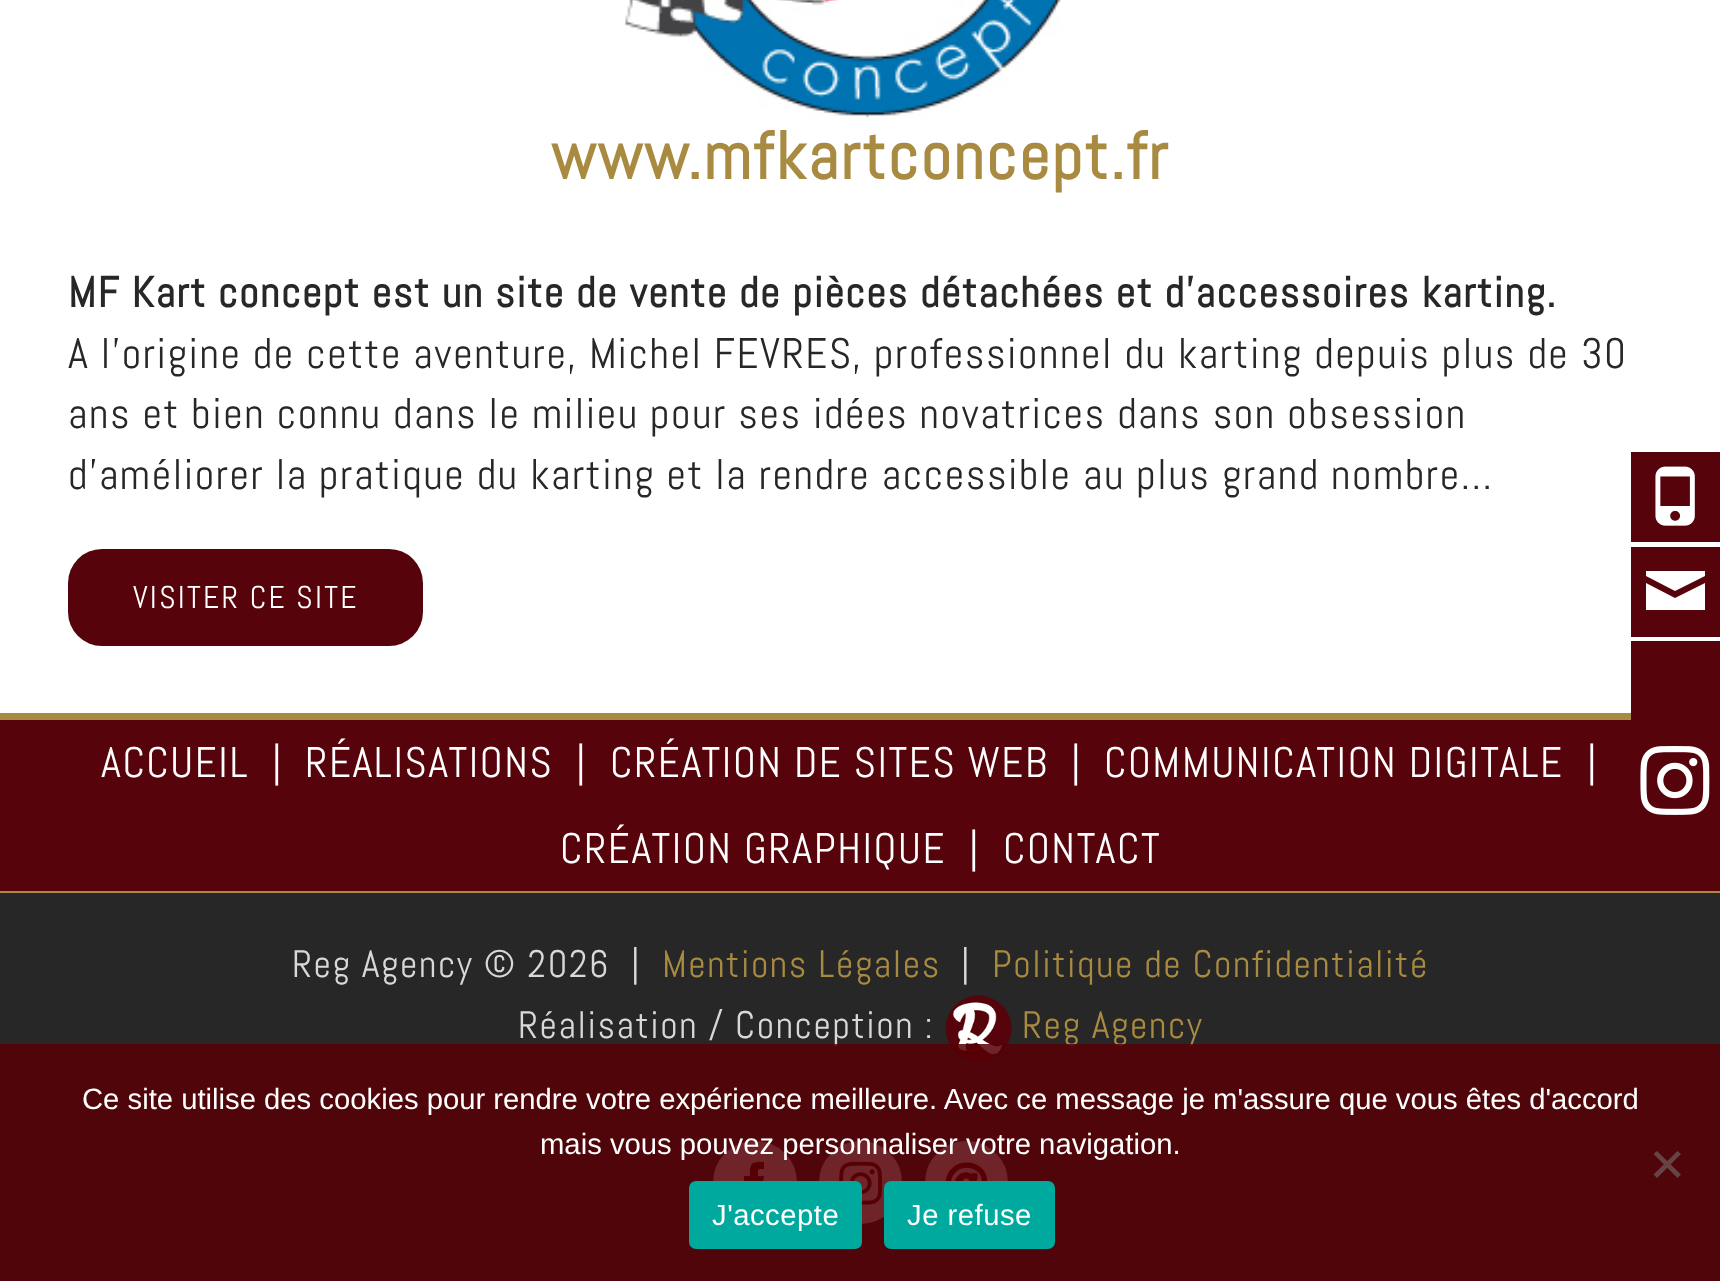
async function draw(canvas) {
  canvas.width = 1720;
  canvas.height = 1281;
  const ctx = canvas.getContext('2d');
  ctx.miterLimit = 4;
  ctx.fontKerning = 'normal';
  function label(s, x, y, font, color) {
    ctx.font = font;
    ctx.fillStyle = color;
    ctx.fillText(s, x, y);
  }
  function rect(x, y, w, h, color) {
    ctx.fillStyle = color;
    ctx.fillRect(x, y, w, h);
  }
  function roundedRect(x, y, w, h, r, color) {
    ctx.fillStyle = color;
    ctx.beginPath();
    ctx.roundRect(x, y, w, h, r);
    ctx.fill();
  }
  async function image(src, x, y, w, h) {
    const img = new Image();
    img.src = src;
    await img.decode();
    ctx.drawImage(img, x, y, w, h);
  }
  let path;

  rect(0, 0, 1720, 1281, '#fff');
  await image('assets/img1.png', 625, 0, 436, 118);
  ctx.letterSpacing = '2.25px';
  label('www.mfkartconcept.fr', 551, 179, 'bold 67.25px Abel', '#a88a41');
  ctx.letterSpacing = '1.57px';
  label('MF Kart concept est un site de vente de pièces détachées et d’accessoires karting.', 68, 307, 'bold 42.75px Abel', '#272727');
  label('A l’origine de cette aventure, Michel FEVRES, professionnel du karting depuis plus de 30', 68, 368, '42.75px Abel', '#272727');
  label('ans et bien connu dans le milieu pour ses idées novatrices dans son obsession', 68, 428, '42.75px Abel', '#272727');
  label('d’améliorer la pratique du karting et la rendre accessible au plus grand nombre…', 68, 489, '42.75px Abel', '#272727');
  roundedRect(68, 549, 355, 97, 34, '#57030b');
  ctx.letterSpacing = '2.25px';
  label('VISITER CE SITE', 133, 608, '31.5px Abel', '#fff');
  rect(0, 720, 1720, 171, '#57030b');
  rect(0, 713, 1631, 7, '#a88a41');
  ctx.letterSpacing = '1.57px';
  label('ACCUEIL', 101, 777, '42.75px Abel', '#fff');
  label('|', 272, 777, '42.75px Abel', '#fff');
  label('RÉALISATIONS', 305, 777, '42.75px Abel', '#fff');
  label('|', 576, 777, '42.75px Abel', '#fff');
  label('CRÉATION DE SITES WEB', 610, 777, '42.75px Abel', '#fff');
  label('|', 1071, 777, '42.75px Abel', '#fff');
  label('COMMUNICATION DIGITALE', 1104, 777, '42.75px Abel', '#fff');
  label('|', 1587, 777, '42.75px Abel', '#fff');
  label('CRÉATION GRAPHIQUE', 560, 863, '42.75px Abel', '#fff');
  label('|', 969, 863, '42.75px Abel', '#fff');
  label('CONTACT', 1003, 863, '42.75px Abel', '#fff');
  rect(0, 893, 1720, 388, '#272727');
  rect(0, 891, 1720, 2, '#a88a41');
  label('Reg Agency © 2026', 292, 977, '38.25px Abel', '#d8d8d8');
  label('|', 631, 977, '38.25px Abel', '#d8d8d8');
  label('Mentions Légales', 662, 977, '38.25px Abel', '#a88a41');
  label('|', 961, 977, '38.25px Abel', '#d8d8d8');
  label('Politique de Confidentialité', 992, 977, '38.25px Abel', '#a88a41');
  label('Réalisation / Conception :', 518, 1038, '38.25px Abel', '#d8d8d8');
  await image('assets/img2.png', 945, 995, 67, 67);
  label('Reg Agency', 1022, 1038, '38.25px Abel', '#a88a41');
  ctx.fillStyle = '#fff';
  ctx.beginPath();
  ctx.roundRect(714, 1142, 82, 81, 40.5);
  ctx.fill();
  ctx.strokeStyle = '#fff';
  ctx.lineWidth = 2;
  ctx.stroke();
  ctx.fillStyle = '#57030b';
  path = new Path2D('M758 1205H750V1183H744V1176H750C750 1162 751 1162 764 1162V1169C757 1169 758 1169 758 1176H764L763 1183H758Z');
  ctx.fill(path);
  ctx.fillStyle = '#fff';
  ctx.beginPath();
  ctx.arc(860.5, 1182.5, 40.5, 0, 2 * Math.PI);
  ctx.fill();
  ctx.stroke();
  await image('assets/img3.png', 839, 1161, 43, 44);
  ctx.beginPath();
  ctx.arc(966.5, 1182.5, 40.5, 0, 2 * Math.PI);
  ctx.fill();
  ctx.stroke();
  await image('assets/img4.png', 945, 1162, 43, 19);
  rect(1631, 452, 89, 90, '#57030b');
  await image('assets/img5.png', 1655, 466, 40, 60);
  rect(1631, 547, 89, 90, '#57030b');
  ctx.fillStyle = '#fff';
  path = new Path2D('M1646 571H1705V576L1675 591L1646 576ZM1646 583L1675 598L1705 583V610H1646Z');
  ctx.fill(path);
  rect(1631, 641, 89, 79, '#57030b');
  await image('assets/img6.png', 1640, 746, 70, 69);
  rect(0, 1044, 1720, 237, '#560005db');
  ctx.letterSpacing = '0px';
  label('Ce site utilise des cookies pour rendre votre expérience meilleure. Avec ce message je m\'assure que vous êtes d\'accord', 82, 1109, '29.25px Liberation Sans', '#fff');
  label('mais vous pouvez personnaliser votre navigation.', 540, 1154, '29.25px Liberation Sans', '#fff');
  ctx.fillStyle = '#684345';
  path = new Path2D('M1677.5 1151L1681 1154L1657 1178L1653.5 1174.5Z');
  ctx.fill(path);
  path = new Path2D('M1653.5 1154L1657 1151L1681 1174.5L1677.5 1178Z');
  ctx.fill(path);
  roundedRect(689, 1181, 173, 68, 7, '#00a99d');
  ctx.letterSpacing = '0.5px';
  label('J\'accepte', 712, 1225, '29.25px Liberation Sans', '#fff');
  roundedRect(884, 1181, 171, 68, 7, '#00a99d');
  label('Je refuse', 907, 1225, '29.25px Liberation Sans', '#fff');
}

draw(document.querySelector('canvas'));
